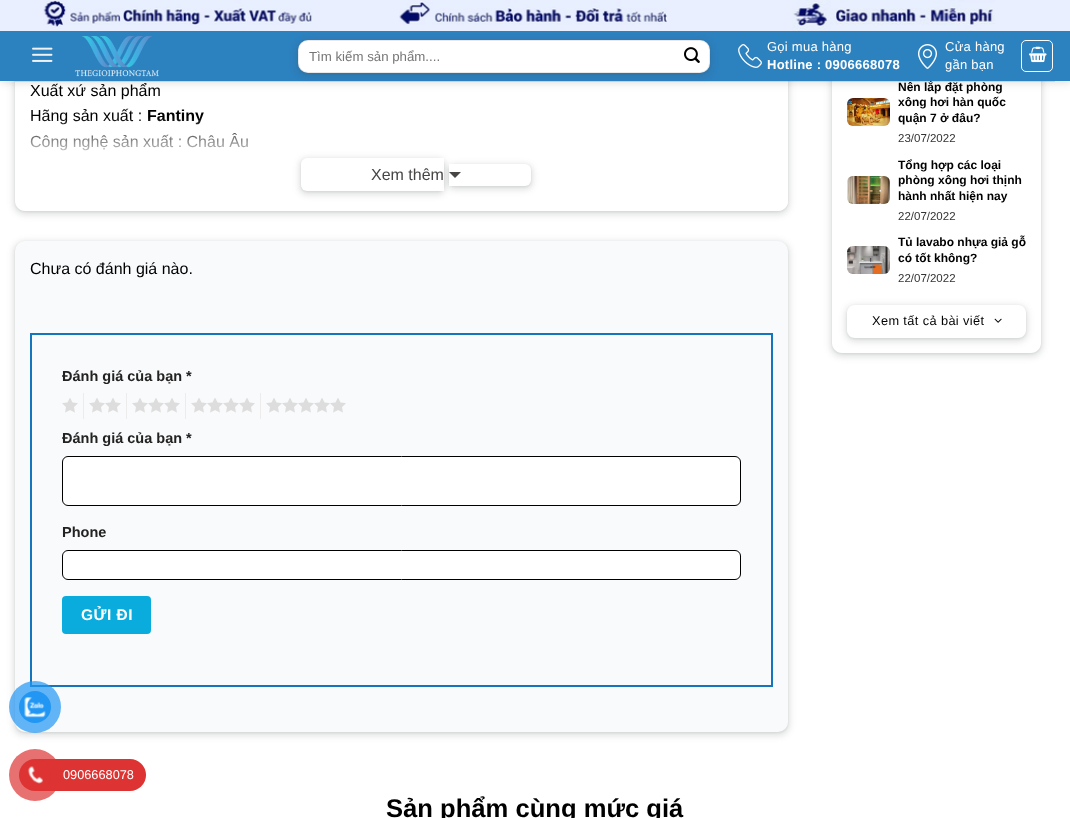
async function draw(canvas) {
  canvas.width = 1070;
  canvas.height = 818;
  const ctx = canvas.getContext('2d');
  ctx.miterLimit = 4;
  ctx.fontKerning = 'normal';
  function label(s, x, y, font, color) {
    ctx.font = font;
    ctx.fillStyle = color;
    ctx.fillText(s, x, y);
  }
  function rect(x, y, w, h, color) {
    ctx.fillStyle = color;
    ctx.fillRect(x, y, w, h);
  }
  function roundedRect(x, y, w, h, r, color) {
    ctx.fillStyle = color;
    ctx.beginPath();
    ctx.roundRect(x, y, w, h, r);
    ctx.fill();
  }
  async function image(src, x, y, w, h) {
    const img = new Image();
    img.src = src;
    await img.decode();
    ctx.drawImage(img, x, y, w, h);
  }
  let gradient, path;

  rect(0, 0, 1070, 818, '#fff');
  ctx.fillStyle = '#00000026';
  ctx.filter = 'blur(5px)';
  ctx.beginPath();
  ctx.rect(1, 1, 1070, 81);
  ctx.fill();
  ctx.filter = 'none';
  ctx.save();
  path = new Path2D('M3 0H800V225H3ZM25-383H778C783.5-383 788-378.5 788-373V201C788 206.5 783.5 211 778 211H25C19.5 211 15 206.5 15 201V-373C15-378.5 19.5-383 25-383Z');
  ctx.clip(path, 'evenodd');
  ctx.fillStyle = '#3c404326';
  ctx.filter = 'blur(3px)';
  ctx.beginPath();
  ctx.roundRect(13, -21, 777, 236, 12);
  ctx.fill();
  ctx.filter = 'none';
  ctx.restore();
  ctx.save();
  path = new Path2D('M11 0H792V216H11ZM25-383H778C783.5-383 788-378.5 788-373V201C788 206.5 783.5 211 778 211H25C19.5 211 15 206.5 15 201V-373C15-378.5 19.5-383 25-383Z');
  ctx.clip(path, 'evenodd');
  ctx.fillStyle = '#3c40431a';
  ctx.filter = 'blur(1px)';
  ctx.beginPath();
  ctx.roundRect(15, -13, 773, 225, 10);
  ctx.fill();
  ctx.filter = 'none';
  ctx.restore();
  ctx.save();
  path = new Path2D('M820 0H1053V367H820ZM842-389H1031C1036.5-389 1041-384.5 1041-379V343C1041 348.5 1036.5 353 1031 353H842C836.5 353 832 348.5 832 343V-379C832-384.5 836.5-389 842-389Z');
  ctx.clip(path, 'evenodd');
  ctx.fillStyle = '#3c404326';
  ctx.filter = 'blur(3px)';
  ctx.beginPath();
  ctx.roundRect(830, -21, 213, 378, 12);
  ctx.fill();
  ctx.filter = 'none';
  ctx.restore();
  ctx.save();
  path = new Path2D('M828 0H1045V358H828ZM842-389H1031C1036.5-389 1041-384.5 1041-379V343C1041 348.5 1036.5 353 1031 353H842C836.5 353 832 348.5 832 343V-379C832-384.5 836.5-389 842-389Z');
  ctx.clip(path, 'evenodd');
  ctx.fillStyle = '#3c40431a';
  ctx.filter = 'blur(1px)';
  ctx.beginPath();
  ctx.roundRect(832, -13, 209, 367, 10);
  ctx.fill();
  ctx.filter = 'none';
  ctx.restore();
  rect(0, 0, 1070, 31, '#e9efff');
  await image('assets/img1.png', 43, 0, 270, 28);
  await image('assets/img2.png', 399, 0, 268, 25);
  await image('assets/img3.png', 792, 0, 203, 31);
  label('Nên lắp đặt phòng', 898, 91, 'bold 12px Liberation Sans', '#000');
  rect(0, 31, 1070, 50, '#2c81bf');
  await image('assets/img4.png', 32, 47, 21, 15);
  await image('assets/img5.png', 74, 36, 85, 41);
  ctx.fillStyle = '#3c404326';
  ctx.filter = 'blur(3px)';
  ctx.beginPath();
  ctx.roundRect(296, 40, 416, 37, 12);
  ctx.fill();
  ctx.filter = 'none';
  ctx.fillStyle = '#3c40431a';
  ctx.filter = 'blur(1px)';
  ctx.beginPath();
  ctx.roundRect(298, 41, 412, 33, 10);
  ctx.fill();
  ctx.filter = 'none';
  roundedRect(298, 40, 412, 33, 10, '#fff');
  ctx.beginPath();
  ctx.roundRect(298.5, 40.5, 411, 32, 9.5);
  ctx.strokeStyle = '#00000017';
  ctx.stroke();
  label('Tìm kiếm sản phẩm....', 309, 61, '13.25px Liberation Sans', '#757575');
  await image('assets/img6.png', 684, 47, 16, 16);
  await image('assets/img7.png', 738, 44, 24, 24);
  ctx.letterSpacing = '0.25px';
  label('Gọi mua hàng', 767, 51, '13px Liberation Sans', '#fff');
  label('Hotline : 0906668078', 767, 69, 'bold 13px Liberation Sans', '#fff');
  await image('assets/img8.png', 918, 44, 19, 25);
  label('Cửa hàng', 945, 51, '13px Liberation Sans', '#fff');
  label('gần bạn', 945, 69, '13px Liberation Sans', '#fff');
  ctx.beginPath();
  ctx.roundRect(1021.5, 40.5, 31, 31, 4.5);
  ctx.strokeStyle = '#fff';
  ctx.stroke();
  await image('assets/img9.png', 1029, 46, 18, 17);
  rect(15, 81, 1040, 1, '#0000001a');
  ctx.letterSpacing = '0px';
  label('Xuất xứ sản phẩm', 30, 96, '16px Liberation Sans', '#000');
  label('Hãng sản xuất :', 30, 121, '16px Liberation Sans', '#000');
  label('Fantiny', 147, 121, 'bold 16px Liberation Sans', '#000');
  label('Công nghệ sản xuất : Châu Âu', 30, 147, '16px Liberation Sans', '#000');
  ctx.fillStyle = '#fff';
  ctx.beginPath();
  ctx.roundRect(30, 162, 758, 49, [0, 0, 10, 0]);
  ctx.fill();
  gradient = ctx.createLinearGradient(417, 117, 417, 162);
  gradient.addColorStop(0, '#ffffff00');
  gradient.addColorStop(1, '#fff');
  ctx.fillStyle = gradient;
  ctx.fillRect(30, 118, 218, 33);
  ctx.fillStyle = '#3c404326';
  ctx.filter = 'blur(3px)';
  ctx.beginPath();
  ctx.roundRect(299, 158, 147, 37, 8);
  ctx.fill();
  ctx.filter = 'none';
  ctx.fillStyle = '#3c40431a';
  ctx.filter = 'blur(1px)';
  ctx.beginPath();
  ctx.roundRect(301, 159, 143, 33, 6);
  ctx.fill();
  ctx.filter = 'none';
  ctx.fillStyle = '#fff';
  ctx.beginPath();
  ctx.roundRect(301, 158, 143, 33, [6, 0, 0, 6]);
  ctx.fill();
  ctx.fillStyle = '#3c404326';
  ctx.filter = 'blur(3px)';
  ctx.beginPath();
  ctx.roundRect(447, 164, 86, 26, 8);
  ctx.fill();
  ctx.filter = 'none';
  ctx.fillStyle = '#3c40431a';
  ctx.filter = 'blur(1px)';
  ctx.beginPath();
  ctx.roundRect(449, 165, 82, 22, 6);
  ctx.fill();
  ctx.filter = 'none';
  ctx.fillStyle = '#fff';
  ctx.beginPath();
  ctx.roundRect(449, 164, 82, 22, [0, 6, 6, 0]);
  ctx.fill();
  label('Xem thêm', 371, 180, '16px Liberation Sans', '#484545');
  path = new Path2D('M449 172H461L455 178Z');
  ctx.fill(path);
  ctx.fillStyle = '#3c404326';
  ctx.filter = 'blur(3px)';
  ctx.beginPath();
  ctx.roundRect(13, 241, 777, 495, 12);
  ctx.fill();
  ctx.filter = 'none';
  ctx.fillStyle = '#3c40431a';
  ctx.filter = 'blur(1px)';
  ctx.beginPath();
  ctx.roundRect(15, 242, 773, 491, 10);
  ctx.fill();
  ctx.filter = 'none';
  roundedRect(15, 241, 773, 491, 10, '#f9fafb');
  label('Chưa có đánh giá nào.', 30, 274, '16px Liberation Sans', '#000');
  ctx.strokeStyle = '#1475bc';
  ctx.lineWidth = 2;
  ctx.strokeRect(31, 334, 741, 352);
  label('Đánh giá của bạn *', 62, 381, 'bold 14.5px Liberation Sans', '#222');
  await image('assets/img10.png', 62, 398, 16, 15);
  rect(83, 393, 1, 26, '#ececec');
  await image('assets/img11.png', 89, 398, 32, 15);
  rect(126, 393, 1, 26, '#ececec');
  await image('assets/img12.png', 132, 398, 48, 15);
  rect(185, 393, 1, 26, '#ececec');
  await image('assets/img13.png', 191, 398, 64, 15);
  rect(260, 393, 1, 26, '#ececec');
  await image('assets/img14.png', 266, 398, 80, 15);
  label('Đánh giá của bạn *', 62, 443, 'bold 14.5px Liberation Sans', '#222');
  ctx.fillStyle = '#fff';
  ctx.beginPath();
  ctx.roundRect(62.5, 456.5, 678, 49, 5.5);
  ctx.fill();
  ctx.strokeStyle = '#000';
  ctx.lineWidth = 1;
  ctx.stroke();
  label('Phone', 62, 537, 'bold 14.5px Liberation Sans', '#222');
  ctx.fillStyle = '#fff';
  ctx.beginPath();
  ctx.roundRect(62.5, 550.5, 678, 29, 5.5);
  ctx.fill();
  ctx.stroke();
  roundedRect(62, 596, 89, 38, 4, '#0aacdd');
  ctx.letterSpacing = '0.5px';
  label('GỬI ĐI', 81, 620, 'bold 15.5px Liberation Sans', '#fff');
  await image('assets/img15.png', 847, 98, 43, 28);
  ctx.letterSpacing = '0px';
  label('xông hơi hàn quốc', 898, 106, 'bold 12px Liberation Sans', '#000');
  label('quận 7 ở đâu?', 898, 122, 'bold 12px Liberation Sans', '#000');
  label('23/07/2022', 898, 142, '11.5px Liberation Sans', '#333');
  await image('assets/img16.png', 847, 176, 43, 28);
  label('Tổng hợp các loại', 898, 169, 'bold 12px Liberation Sans', '#000');
  label('phòng xông hơi thịnh', 898, 184, 'bold 12px Liberation Sans', '#000');
  label('hành nhất hiện nay', 898, 200, 'bold 12px Liberation Sans', '#000');
  label('22/07/2022', 898, 220, '11.5px Liberation Sans', '#333');
  await image('assets/img17.png', 847, 246, 43, 28);
  label('Tủ lavabo nhựa giả gỗ', 898, 246, 'bold 12px Liberation Sans', '#000');
  label('có tốt không?', 898, 262, 'bold 12px Liberation Sans', '#000');
  label('22/07/2022', 898, 282, '11.5px Liberation Sans', '#333');
  ctx.save();
  path = new Path2D('M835 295H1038V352H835ZM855 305H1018C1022.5 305 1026 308.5 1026 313V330C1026 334.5 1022.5 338 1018 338H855C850.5 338 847 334.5 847 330V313C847 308.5 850.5 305 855 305Z');
  ctx.clip(path, 'evenodd');
  ctx.fillStyle = '#3c404326';
  ctx.filter = 'blur(3px)';
  ctx.beginPath();
  ctx.roundRect(845, 305, 183, 37, 10);
  ctx.fill();
  ctx.filter = 'none';
  ctx.restore();
  ctx.save();
  path = new Path2D('M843 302H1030V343H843ZM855 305H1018C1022.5 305 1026 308.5 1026 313V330C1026 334.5 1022.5 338 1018 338H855C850.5 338 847 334.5 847 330V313C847 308.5 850.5 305 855 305Z');
  ctx.clip(path, 'evenodd');
  ctx.fillStyle = '#3c40431a';
  ctx.filter = 'blur(1px)';
  ctx.beginPath();
  ctx.roundRect(847, 306, 179, 33, 8);
  ctx.fill();
  ctx.filter = 'none';
  ctx.restore();
  ctx.letterSpacing = '0.4px';
  label('Xem tất cả bài viết', 872, 325, '12.75px Liberation Sans', '#000');
  await image('assets/img18.png', 994, 318, 8, 5);
  ctx.letterSpacing = '0px';
  label('Sản phẩm cùng mức giá', 386, 817, 'bold 25.6px Liberation Sans', '#000');
  ctx.fillStyle = '#2196f3b3';
  ctx.beginPath();
  ctx.arc(35, 707, 26, 0, 2 * Math.PI);
  ctx.fill();
  ctx.fillStyle = '#2196f3';
  ctx.beginPath();
  ctx.arc(35, 707, 16, 0, 2 * Math.PI);
  ctx.fill();
  await image('assets/img19.png', 24, 697, 22, 21);
  roundedRect(23, 759, 123, 32, 16, '#d33');
  ctx.fillStyle = '#dd3333b3';
  ctx.beginPath();
  ctx.arc(35, 775, 26, 0, 2 * Math.PI);
  ctx.fill();
  ctx.fillStyle = '#d33';
  ctx.beginPath();
  ctx.arc(35, 775, 16, 0, 2 * Math.PI);
  ctx.fill();
  await image('assets/img20.png', 27, 766, 16, 18);
  label('0906668078', 63, 779, '12.75px Liberation Sans', '#fff');
}

draw(document.querySelector('canvas'));
